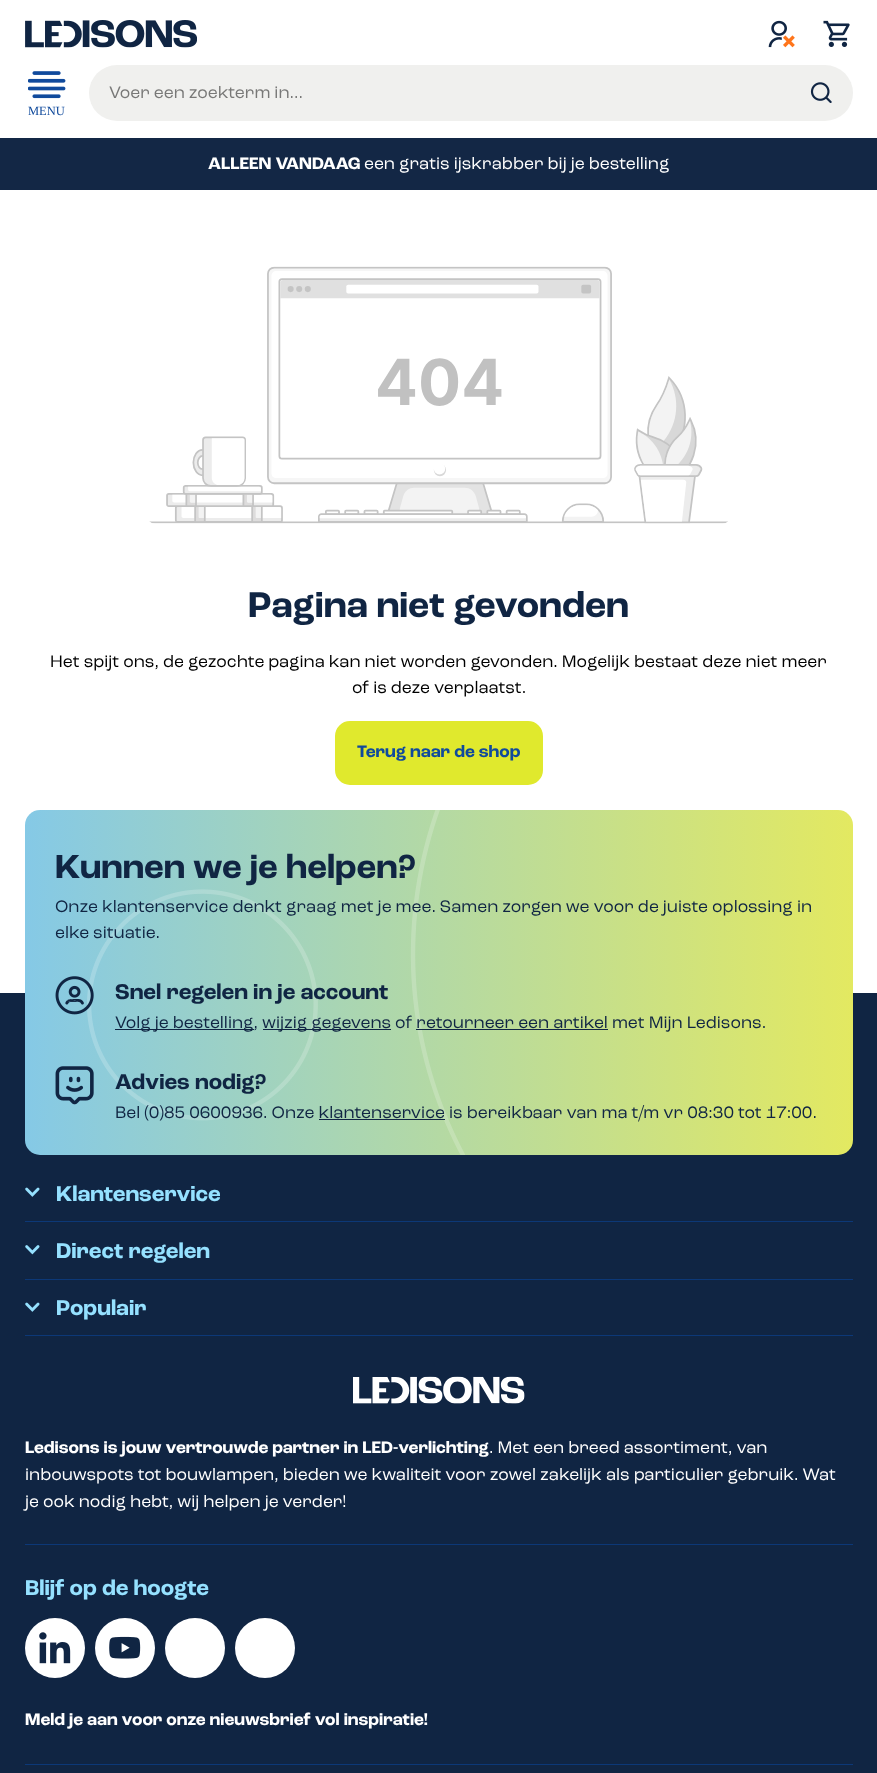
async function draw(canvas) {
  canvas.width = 877;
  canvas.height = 1773;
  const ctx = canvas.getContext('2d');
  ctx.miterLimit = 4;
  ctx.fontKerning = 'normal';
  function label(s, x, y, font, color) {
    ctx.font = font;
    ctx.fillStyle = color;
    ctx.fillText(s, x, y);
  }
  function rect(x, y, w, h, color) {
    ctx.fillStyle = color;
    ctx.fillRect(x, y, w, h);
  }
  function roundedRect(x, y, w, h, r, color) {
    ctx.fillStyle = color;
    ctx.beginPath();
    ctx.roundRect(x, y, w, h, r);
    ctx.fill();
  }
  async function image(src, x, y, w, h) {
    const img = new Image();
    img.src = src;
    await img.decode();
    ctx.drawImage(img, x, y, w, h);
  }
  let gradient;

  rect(0, 0, 877, 1773, '#fff');
  await image('assets/img1.png', 25, 20, 172, 28);
  await image('assets/img2.png', 768, 20, 19, 28);
  await image('assets/img3.png', 783, 35, 12, 13);
  await image('assets/img4.png', 823, 20, 27, 27);
  roundedRect(89, 65, 764, 56, 28, '#f0f0ee');
  label('Voer een zoekterm in...', 109, 98, '17.5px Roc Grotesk', '#787877');
  await image('assets/img5.png', 810, 82, 22, 21);
  await image('assets/img6.png', 28, 71, 38, 28);
  label('MENU', 28, 115, '12.5px Liberation Serif', '#104a9c');
  rect(0, 138, 877, 52, '#132745');
  label('ALLEEN VANDAAG', 208, 169, 'bold 17.5px Roc Grotesk', '#fff');
  label('een gratis ijskrabber bij je bestelling', 364, 169, '17.5px Roc Grotesk', '#fff');
  await image('assets/img7.png', 149, 266, 579, 258);
  label('Pagina niet gevonden', 248, 617, 'bold 37.5px Roc Grotesk', '#102543');
  label('Het spijt ons, de gezochte pagina kan niet worden gevonden. Mogelijk bestaat deze niet meer', 50, 667, '17.5px Roc Grotesk', '#000');
  label('of is deze verplaatst.', 352, 693, '17.5px Roc Grotesk', '#000');
  ctx.fillStyle = '#e0e92d';
  ctx.beginPath();
  ctx.roundRect(336.5, 722.5, 205, 61, 13.5);
  ctx.fill();
  ctx.strokeStyle = '#e0e92d';
  ctx.lineWidth = 3;
  ctx.stroke();
  label('Terug naar de shop', 357, 757, 'bold 17.5px Roc Grotesk', '#104a9c');
  rect(0, 993, 877, 780, '#102543');
  gradient = ctx.createLinearGradient(25, 983, 853, 983);
  gradient.addColorStop(0, '#85c9e6');
  gradient.addColorStop(1, '#e3e961');
  ctx.fillStyle = gradient;
  ctx.beginPath();
  ctx.roundRect(25, 810, 828, 345, 15);
  ctx.fill();
  await image('assets/img8.png', 87, 810, 378, 345);
  label('Kunnen we je helpen?', 55, 878, 'bold 35px Roc Grotesk', '#102543');
  label('Onze klantenservice denkt graag met je mee. Samen zorgen we voor de juiste oplossing in', 55, 912, '17.5px Roc Grotesk', '#102543');
  label('elke situatie.', 55, 938, '17.5px Roc Grotesk', '#102543');
  await image('assets/img9.png', 55, 976, 39, 39);
  label('Snel regelen in je account', 115, 999, 'bold 22.5px Roc Grotesk', '#102543');
  rect(115, 1029, 139, 1, '#102543');
  label('Volg je bestelling,', 115, 1028, '17.5px Roc Grotesk', '#102543');
  rect(263, 1029, 128, 1, '#102543');
  label('wijzig gegevens of retourneer een artikel met Mijn Ledisons.', 262, 1028, '17.5px Roc Grotesk', '#102543');
  rect(416, 1029, 192, 1, '#102543');
  await image('assets/img10.png', 55, 1066, 39, 39);
  label('Advies nodig?', 115, 1089, 'bold 22.5px Roc Grotesk', '#102543');
  label('Bel (0)85 0600936. Onze klantenservice is bereikbaar van ma t/m vr 08:30 tot 17:00.', 115, 1118, '17.5px Roc Grotesk', '#102543');
  rect(319, 1119, 126, 1, '#102543');
  await image('assets/img11.png', 25, 1187, 15, 10);
  label('Klantenservice', 56, 1201, 'bold 22.5px Roc Grotesk', '#95e1ff');
  rect(25, 1221, 828, 1, '#0c3877');
  await image('assets/img12.png', 25, 1245, 15, 10);
  label('Direct regelen', 56, 1258, 'bold 22.5px Roc Grotesk', '#95e1ff');
  rect(25, 1279, 828, 1, '#0c3877');
  await image('assets/img11.png', 25, 1302, 15, 10);
  label('Populair', 56, 1315, 'bold 22.5px Roc Grotesk', '#95e1ff');
  rect(25, 1335, 828, 1, '#0c3877');
  await image('assets/img13.png', 353, 1376, 172, 28);
  label('Ledisons is jouw vertrouwde partner in LED-verlichting', 25, 1453, 'bold 17.5px Roc Grotesk', '#fff');
  label('. Met een breed assortiment, van', 489, 1453, '17.5px Roc Grotesk', '#fff');
  label('inbouwspots tot bouwlampen, bieden we kwaliteit voor zowel zakelijk als particulier gebruik. Wat', 25, 1480, '17.5px Roc Grotesk', '#fff');
  label('je ook nodig hebt, wij helpen je verder!', 25, 1507, '17.5px Roc Grotesk', '#fff');
  rect(25, 1544, 828, 1, '#0c3877');
  label('Blijf op de hoogte', 25, 1595, 'bold 22.5px Roc Grotesk', '#95e1ff');
  ctx.fillStyle = '#fff';
  ctx.beginPath();
  ctx.arc(55, 1648, 30, 0, 2 * Math.PI);
  ctx.fill();
  await image('assets/img14.png', 39, 1632, 32, 32);
  ctx.beginPath();
  ctx.arc(125, 1648, 30, 0, 2 * Math.PI);
  ctx.fill();
  await image('assets/img15.png', 109, 1636, 32, 23);
  ctx.beginPath();
  ctx.arc(195, 1648, 30, 0, 2 * Math.PI);
  ctx.fill();
  ctx.beginPath();
  ctx.arc(265, 1648, 30, 0, 2 * Math.PI);
  ctx.fill();
  label('Meld je aan voor onze nieuwsbrief vol inspiratie!', 25, 1725, 'bold 17.5px Roc Grotesk', '#fff');
  rect(25, 1764, 828, 1, '#0c3877');
}

draw(document.querySelector('canvas'));
